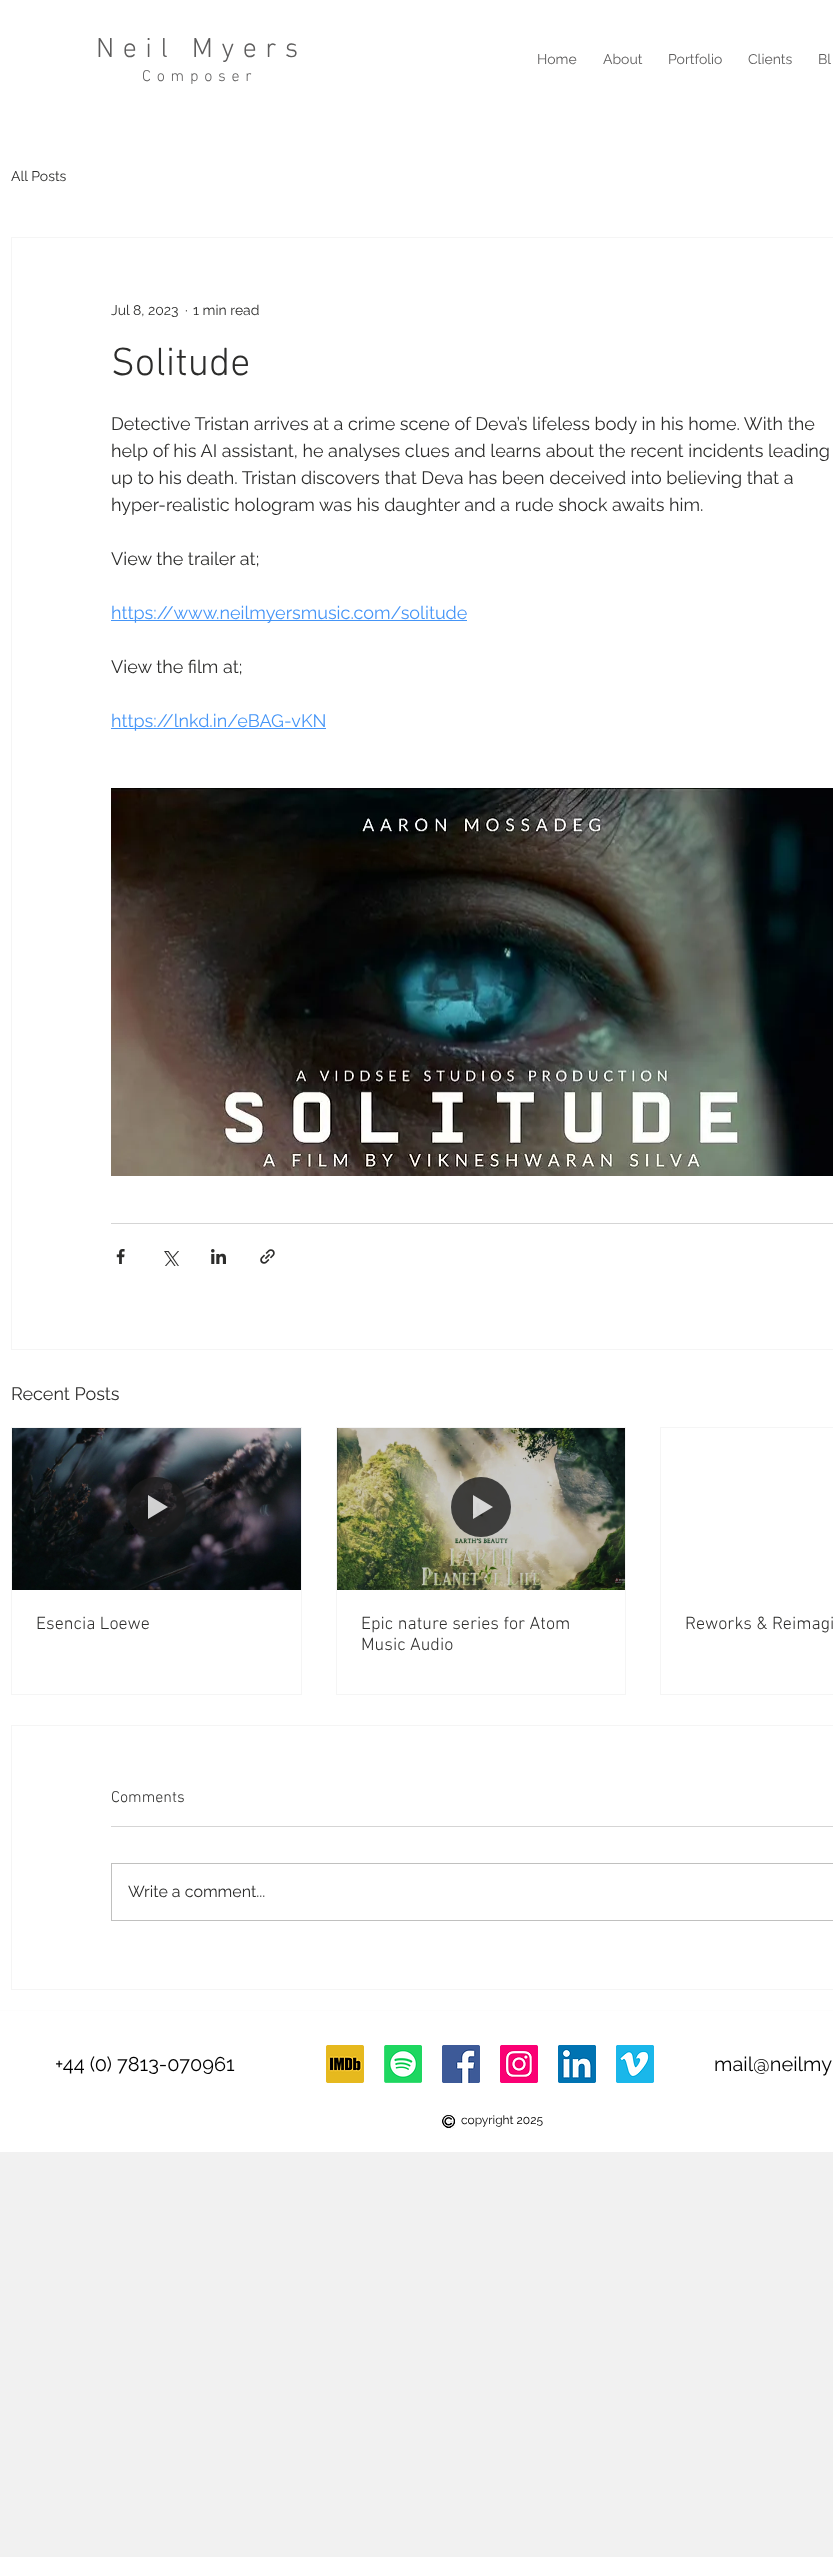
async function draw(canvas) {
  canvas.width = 833;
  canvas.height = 2557;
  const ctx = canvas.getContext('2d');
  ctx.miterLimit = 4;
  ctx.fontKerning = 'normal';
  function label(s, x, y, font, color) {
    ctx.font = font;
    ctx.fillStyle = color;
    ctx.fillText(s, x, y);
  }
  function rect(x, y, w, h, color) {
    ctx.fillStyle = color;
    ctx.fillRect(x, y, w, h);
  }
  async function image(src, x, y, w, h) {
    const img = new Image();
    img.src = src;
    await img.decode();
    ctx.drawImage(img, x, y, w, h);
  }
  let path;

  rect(0, 0, 833, 2557, '#f1f1f1');
  rect(0, 0, 833, 2010, '#fff');
  ctx.letterSpacing = '8.5px';
  label('Neil Myers', 96, 57, '300 28px "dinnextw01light"', '#5e5d5d');
  ctx.letterSpacing = '5.75px';
  label('Composer', 142, 81, '300 16px "dinnextw01light"', '#5e5d5d');
  ctx.letterSpacing = '0px';
  label('Home', 537, 64, '14px Raleway', '#5e5d5d');
  label('About', 603, 64, '14px Raleway', '#5e5d5d');
  label('Portfolio', 668, 64, '14px Raleway', '#5e5d5d');
  label('Clients', 748, 64, '14px Raleway', '#5e5d5d');
  label('Bl', 818, 64, '14px Raleway', '#5e5d5d');
  label('All Posts', 11, 181, '14px Raleway', '#2c2c2b');
  ctx.strokeStyle = '#f5f5f5';
  ctx.strokeRect(11.5, 237.5, 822, 1112);
  label('Jul 8, 2023', 111, 315, '14px Raleway', '#2c2c2b');
  label('·', 185, 315, '14px Raleway', '#2c2c2b');
  label('1 min read', 193, 315, '14px Raleway', '#2c2c2b');
  label('Solitude', 111, 375, '300 40px "dinnextw01light"', '#2c2c2b');
  label('Detective Tristan arrives at a crime scene of Deva’s lifeless body in his home. With the', 111, 430, '18px Raleway', '#2c2c2b');
  label('help of his AI assistant, he analyses clues and learns about the recent incidents leading', 111, 457, '18px Raleway', '#2c2c2b');
  label('up to his death. Tristan discovers that Deva has been deceived into believing that a', 111, 484, '18px Raleway', '#2c2c2b');
  label('hyper-realistic hologram was his daughter and a rude shock awaits him.', 111, 511, '18px Raleway', '#2c2c2b');
  label('View the trailer at;', 111, 565, '18px Raleway', '#2c2c2b');
  rect(111, 620, 356, 1, '#4595f7');
  label('https://www.neilmyersmusic.com/solitude', 111, 619, '18px Raleway', '#4595f7');
  label('View the film at;', 111, 673, '18px Raleway', '#2c2c2b');
  rect(111, 728, 215, 1, '#4595f7');
  label('https://lnkd.in/eBAG-vKN', 111, 727, '18px Raleway', '#4595f7');
  await image('assets/img1.png', 111, 788, 722, 388);
  rect(111, 1223, 722, 1, '#d5d5d5');
  await image('assets/img2.png', 116, 1249, 9, 15);
  await image('assets/img3.png', 164, 1251, 15, 15);
  await image('assets/img4.png', 211, 1249, 15, 15);
  await image('assets/img5.png', 260, 1249, 15, 15);
  label('Recent Posts', 11, 1400, '18px Raleway', '#2c2c2b');
  ctx.strokeRect(11.5, 1427.5, 290, 267);
  await image('assets/img6.png', 12, 1428, 289, 162);
  ctx.fillStyle = '#1a1a1acc';
  ctx.beginPath();
  ctx.arc(156, 1507, 30, 0, 2 * Math.PI);
  ctx.fill();
  ctx.fillStyle = '#ffffffcc';
  path = new Path2D('M148 1495V1519L168 1507Z');
  ctx.fill(path);
  label('Esencia Loewe', 36, 1629, '300 18px "dinnextw01light"', '#2c2c2b');
  ctx.strokeRect(336.5, 1427.5, 289, 267);
  await image('assets/img7.png', 337, 1428, 288, 162);
  ctx.fillStyle = '#1a1a1acc';
  ctx.beginPath();
  ctx.arc(481, 1507, 30, 0, 2 * Math.PI);
  ctx.fill();
  ctx.fillStyle = '#ffffffcc';
  path = new Path2D('M473 1495V1519L493 1507Z');
  ctx.fill(path);
  label('Epic nature series for Atom', 361, 1629, '300 18px "dinnextw01light"', '#2c2c2b');
  label('Music Audio', 361, 1650, '300 18px "dinnextw01light"', '#2c2c2b');
  ctx.strokeRect(660.5, 1427.5, 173, 267);
  label('Reworks & Reimagi', 685, 1629, '300 18px "dinnextw01light"', '#2c2c2b');
  ctx.strokeRect(11.5, 1725.5, 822, 264);
  label('Comments', 111, 1802, '300 16px "dinnextw01light"', '#2c2c2b');
  rect(111, 1826, 722, 1, '#d5d5d5');
  ctx.strokeStyle = '#c0c0bf';
  ctx.strokeRect(111.5, 1863.5, 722, 57);
  label('Write a comment...', 128, 1897, '16px Raleway', '#2c2c2b');
  rect(0, 2010, 833, 1, '#fdfdfd');
  rect(0, 2011, 833, 141, '#fff');
  label('+44 (0) 7813-070961', 55, 2071, '20px Raleway', '#000');
  await image('assets/img8.png', 326, 2045, 38, 38);
  await image('assets/img9.png', 384, 2045, 38, 38);
  await image('assets/img10.png', 442, 2045, 38, 38);
  await image('assets/img11.png', 500, 2045, 38, 38);
  await image('assets/img12.png', 558, 2045, 38, 38);
  await image('assets/img13.png', 616, 2045, 38, 38);
  label('mail@neilmy', 714, 2071, '20px Raleway', '#000');
  await image('assets/img14.png', 440, 2114, 16, 15);
  label('copyright 2025', 461, 2124, '12px Raleway', '#000');
}

draw(document.querySelector('canvas'));
